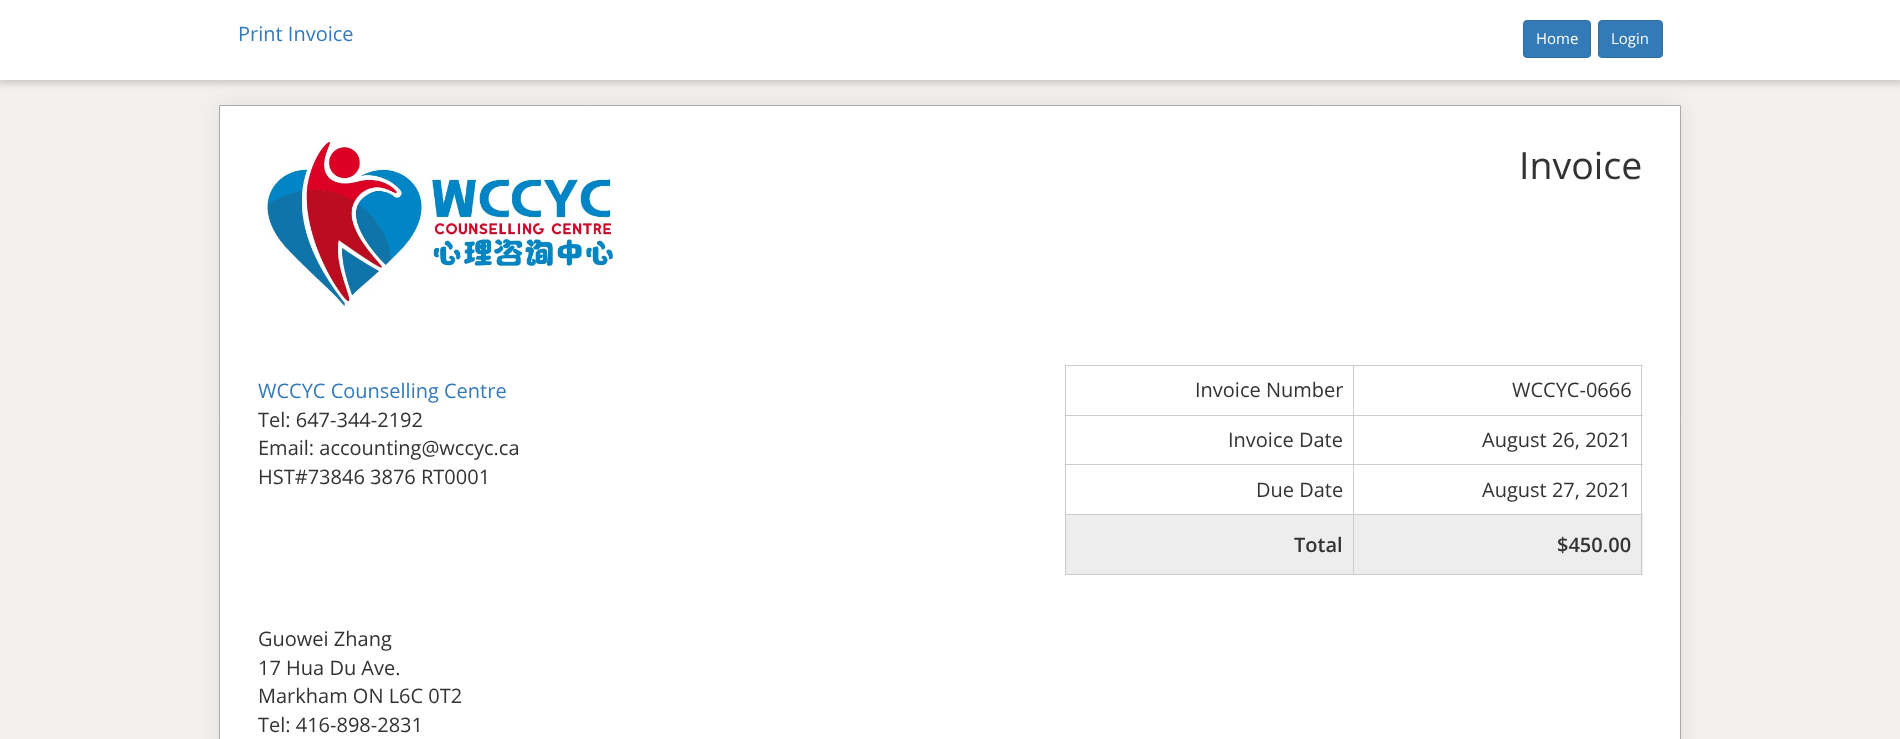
async function draw(canvas) {
  canvas.width = 1900;
  canvas.height = 739;
  const ctx = canvas.getContext('2d');
  ctx.miterLimit = 4;
  ctx.fontKerning = 'normal';
  function label(s, x, y, font, color) {
    ctx.font = font;
    ctx.fillStyle = color;
    ctx.fillText(s, x, y);
  }
  function rect(x, y, w, h, color) {
    ctx.fillStyle = color;
    ctx.fillRect(x, y, w, h);
  }
  async function image(src, x, y, w, h) {
    const img = new Image();
    img.src = src;
    await img.decode();
    ctx.drawImage(img, x, y, w, h);
  }

  rect(0, 0, 1900, 739, '#f2f1ef');
  ctx.fillStyle = '#00000026';
  ctx.filter = 'blur(3px)';
  ctx.beginPath();
  ctx.rect(-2, -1, 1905, 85);
  ctx.fill();
  ctx.filter = 'none';
  rect(0, 0, 1900, 80, '#fff');
  label('Print Invoice', 238, 41, '20px Open Sans', '#337ab7');
  ctx.beginPath();
  ctx.roundRect(1523.5, 20.5, 67, 37, 3.5);
  ctx.fill();
  ctx.strokeStyle = '#2e6da4';
  ctx.stroke();
  label('Home', 1536, 44, '15px Open Sans', '#fff');
  ctx.fillStyle = '#337ab7';
  ctx.beginPath();
  ctx.roundRect(1598.5, 20.5, 64, 37, 3.5);
  ctx.fill();
  ctx.stroke();
  label('Login', 1611, 44, '15px Open Sans', '#fff');
  ctx.fillStyle = '#00000012';
  ctx.filter = 'blur(12.5px)';
  ctx.beginPath();
  ctx.rect(219, 105, 1462, 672);
  ctx.fill();
  ctx.filter = 'none';
  ctx.fillStyle = '#fff';
  ctx.beginPath();
  ctx.rect(219.5, 105.5, 1461, 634);
  ctx.fill();
  ctx.strokeStyle = '#aaa';
  ctx.stroke();
  await image('assets/img1.png', 266, 141, 354, 168);
  label('Invoice', 1519, 179, '37.5px Open Sans', '#333');
  label('WCCYC Counselling Centre', 258, 398, '20px Open Sans', '#337ab7');
  label('Tel: 647-344-2192', 258, 427, '20px Open Sans', '#333');
  label('Email: accounting@wccyc.ca', 258, 455, '20px Open Sans', '#333');
  label('HST#73846 3876 RT0001', 258, 484, '20px Open Sans', '#333');
  rect(1065, 365, 578, 1, '#ccc');
  rect(1354, 515, 289, 59, '#ededed');
  rect(1641, 365, 1, 210, '#ccc');
  rect(1065, 574, 578, 1, '#ccc');
  rect(1065, 365, 1, 210, '#ccc');
  label('Invoice Number', 1195, 397, '20px Open Sans', '#333');
  rect(1353, 415, 290, 1, '#ccc');
  rect(1353, 464, 290, 1, '#ccc');
  rect(1353, 514, 290, 1, '#ccc');
  rect(1353, 514, 1, 61, '#ccc');
  rect(1065, 514, 289, 1, '#ccc');
  rect(1353, 464, 1, 51, '#ccc');
  rect(1065, 464, 289, 1, '#ccc');
  rect(1353, 415, 1, 50, '#ccc');
  rect(1065, 415, 289, 1, '#ccc');
  rect(1353, 365, 1, 51, '#ccc');
  label('WCCYC-0666', 1512, 397, '20px Open Sans', '#333');
  label('Invoice Date', 1228, 447, '20px Open Sans', '#333');
  label('August 26, 2021', 1482, 447, '20px Open Sans', '#333');
  label('Due Date', 1256, 497, '20px Open Sans', '#333');
  label('August 27, 2021', 1482, 497, '20px Open Sans', '#333');
  rect(1066, 515, 287, 59, '#ededed');
  label('Total', 1294, 552, '600 20px Open Sans', '#333');
  label('$450.00', 1557, 552, '600 20px Open Sans', '#333');
  label('Guowei Zhang', 258, 646, '20px Open Sans', '#333');
  label('17 Hua Du Ave.', 258, 675, '20px Open Sans', '#333');
  label('Markham ON L6C 0T2', 258, 703, '20px Open Sans', '#333');
  label('Tel: 416-898-2831', 258, 732, '20px Open Sans', '#333');
}

draw(document.querySelector('canvas'));
